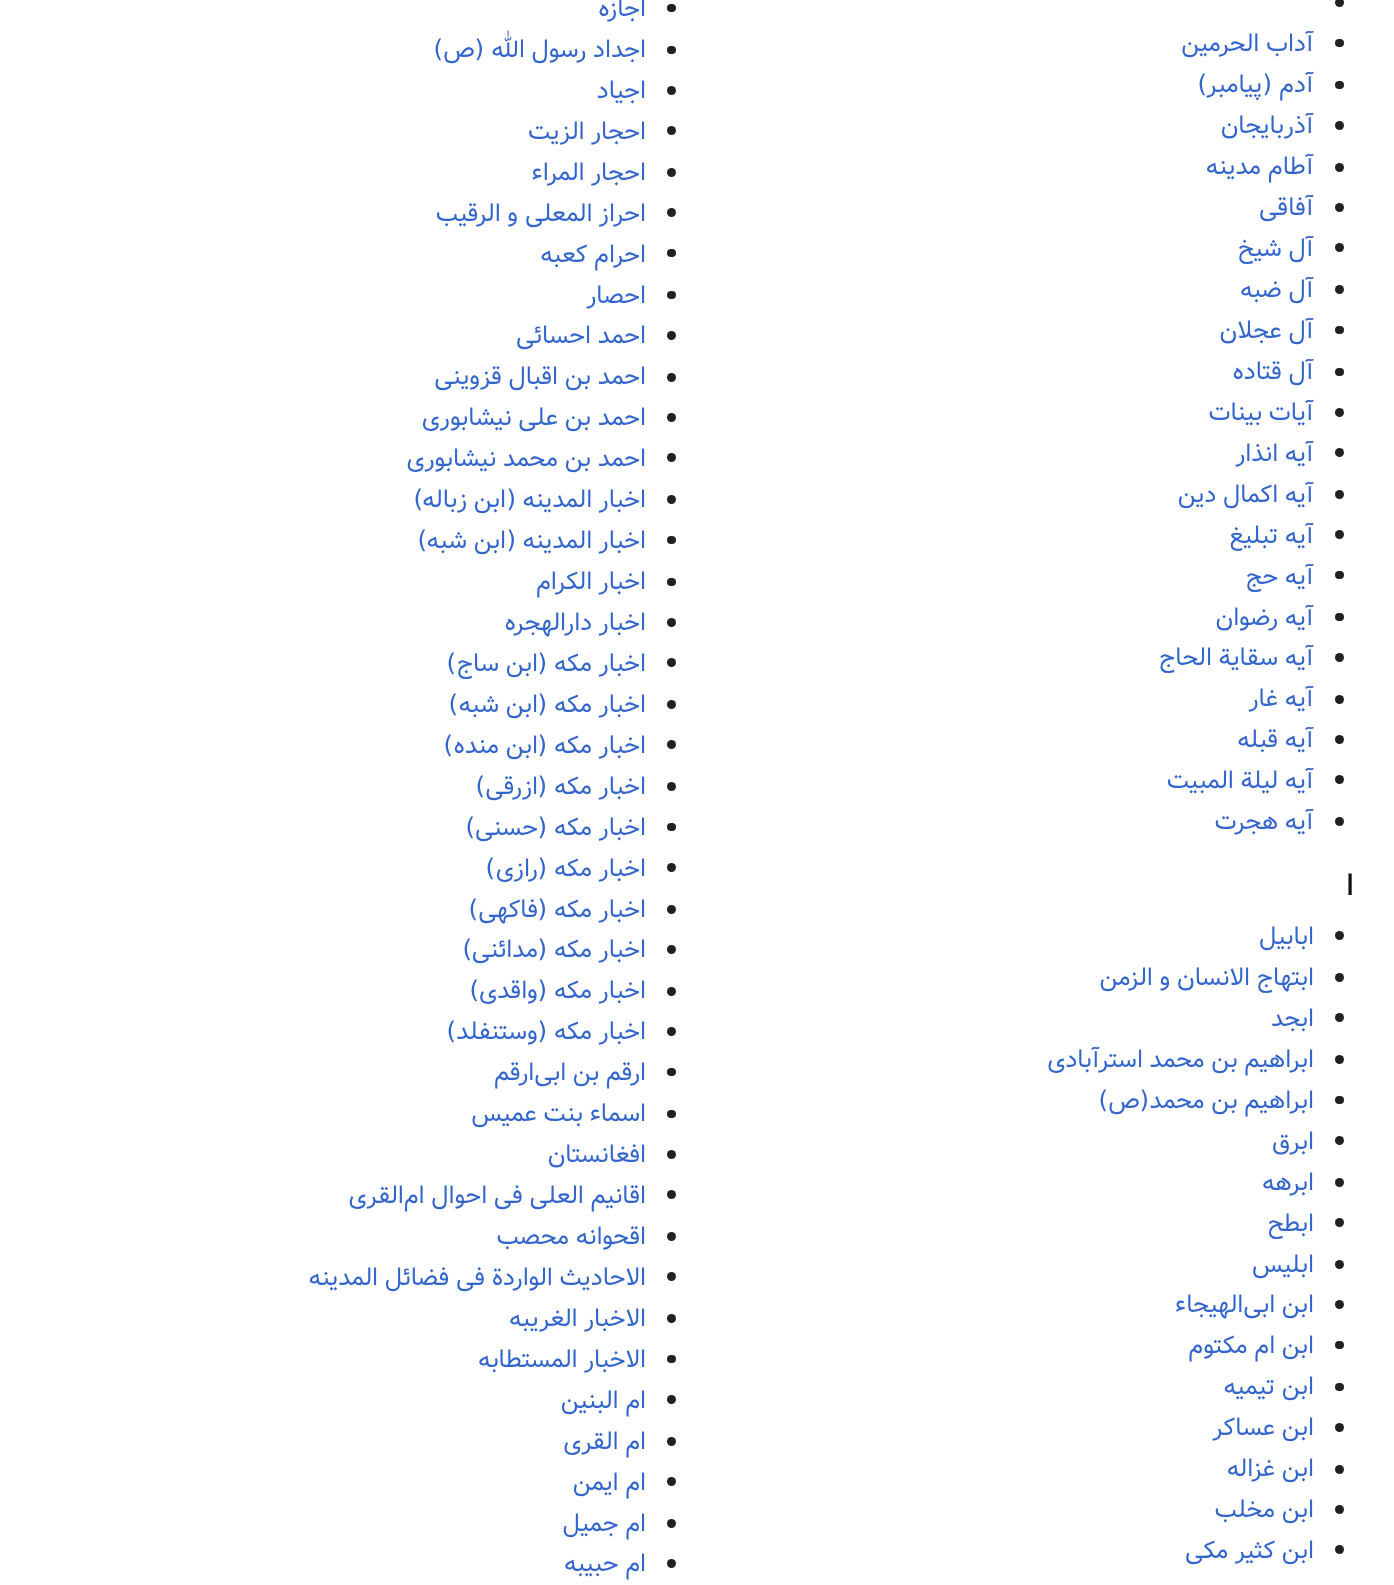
async function draw(canvas) {
  canvas.width = 1394;
  canvas.height = 1585;
  const ctx = canvas.getContext('2d');
  ctx.miterLimit = 4;
  ctx.fontKerning = 'normal';
  function label(s, x, y, font, color) {
    ctx.font = font;
    ctx.fillStyle = color;
    ctx.fillText(s, x, y);
  }
  function rect(x, y, w, h, color) {
    ctx.fillStyle = color;
    ctx.fillRect(x, y, w, h);
  }
  function roundedRect(x, y, w, h, r, color) {
    ctx.fillStyle = color;
    ctx.beginPath();
    ctx.roundRect(x, y, w, h, r);
    ctx.fill();
  }

  rect(0, 0, 1394, 1585, '#fff');
  ctx.direction = 'rtl';
  label('ا', 1353, 895, 'bold 29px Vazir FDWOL', '#101418');
  roundedRect(667, 4, 9, 8, 4, '#202122');
  label('اجازه', 646, 16, '24.5px Vazir FDWOL', '#36c');
  roundedRect(667, 46, 9, 8, 4, '#202122');
  label('اجداد رسول الله', 646, 57, '24.5px Vazir FDWOL', '#36c');
  label('(', 484, 57, '24.5px DejaVu Sans', '#36c');
  label('ص', 475, 57, '24.5px Vazir FDWOL', '#36c');
  label(')', 443, 57, '24.5px DejaVu Sans', '#36c');
  ctx.fillStyle = '#202122';
  ctx.beginPath();
  ctx.arc(671.5, 90.5, 4.5, 0, 2 * Math.PI);
  ctx.fill();
  label('اجیاد', 646, 98, '24.5px Vazir FDWOL', '#36c');
  ctx.fillStyle = '#202122';
  ctx.beginPath();
  ctx.arc(671.5, 130.5, 4.5, 0, 2 * Math.PI);
  ctx.fill();
  label('احجار الزیت', 646, 139, '24.5px Vazir FDWOL', '#36c');
  ctx.fillStyle = '#202122';
  ctx.beginPath();
  ctx.arc(671.5, 172.5, 4.5, 0, 2 * Math.PI);
  ctx.fill();
  label('احجار المراء', 646, 180, '24.5px Vazir FDWOL', '#36c');
  ctx.fillStyle = '#202122';
  ctx.beginPath();
  ctx.arc(671.5, 212.5, 4.5, 0, 2 * Math.PI);
  ctx.fill();
  label('احراز المعلی و الرقیب', 646, 221, '24.5px Vazir FDWOL', '#36c');
  roundedRect(667, 249, 9, 8, 4, '#202122');
  label('احرام کعبه', 646, 262, '24.5px Vazir FDWOL', '#36c');
  roundedRect(667, 291, 9, 8, 4, '#202122');
  label('احصار', 646, 303, '24.5px Vazir FDWOL', '#36c');
  ctx.fillStyle = '#202122';
  ctx.beginPath();
  ctx.arc(671.5, 335.5, 4.5, 0, 2 * Math.PI);
  ctx.fill();
  label('احمد احسائی', 646, 343, '24.5px Vazir FDWOL', '#36c');
  ctx.fillStyle = '#202122';
  ctx.beginPath();
  ctx.arc(671.5, 377.5, 4.5, 0, 2 * Math.PI);
  ctx.fill();
  label('احمد بن اقبال قزوینی', 646, 384, '24.5px Vazir FDWOL', '#36c');
  ctx.fillStyle = '#202122';
  ctx.beginPath();
  ctx.arc(671.5, 417.5, 4.5, 0, 2 * Math.PI);
  ctx.fill();
  label('احمد بن علی نیشابوری', 646, 425, '24.5px Vazir FDWOL', '#36c');
  ctx.fillStyle = '#202122';
  ctx.beginPath();
  ctx.arc(671.5, 457.5, 4.5, 0, 2 * Math.PI);
  ctx.fill();
  label('احمد بن محمد نیشابوری', 646, 466, '24.5px Vazir FDWOL', '#36c');
  ctx.fillStyle = '#202122';
  ctx.beginPath();
  ctx.arc(671.5, 499.5, 4.5, 0, 2 * Math.PI);
  ctx.fill();
  label('اخبار المدینه', 646, 507, '24.5px Vazir FDWOL', '#36c');
  label('(', 516, 507, '24.5px DejaVu Sans', '#36c');
  label('ابن زباله', 506, 507, '24.5px Vazir FDWOL', '#36c');
  label(')', 423, 507, '24.5px DejaVu Sans', '#36c');
  roundedRect(667, 536, 9, 8, 4, '#202122');
  label('اخبار المدینه', 646, 548, '24.5px Vazir FDWOL', '#36c');
  label('(', 516, 548, '24.5px DejaVu Sans', '#36c');
  label('ابن شبه', 506, 548, '24.5px Vazir FDWOL', '#36c');
  label(')', 427, 548, '24.5px DejaVu Sans', '#36c');
  roundedRect(667, 578, 9, 8, 4, '#202122');
  label('اخبار الکرام', 646, 589, '24.5px Vazir FDWOL', '#36c');
  ctx.fillStyle = '#202122';
  ctx.beginPath();
  ctx.arc(671.5, 622.5, 4.5, 0, 2 * Math.PI);
  ctx.fill();
  label('اخبار دارالهجره', 646, 630, '24.5px Vazir FDWOL', '#36c');
  ctx.fillStyle = '#202122';
  ctx.beginPath();
  ctx.arc(671.5, 662.5, 4.5, 0, 2 * Math.PI);
  ctx.fill();
  label('اخبار مکه', 646, 671, '24.5px Vazir FDWOL', '#36c');
  label('(', 547, 671, '24.5px DejaVu Sans', '#36c');
  label('ابن ساج', 538, 671, '24.5px Vazir FDWOL', '#36c');
  label(')', 456, 671, '24.5px DejaVu Sans', '#36c');
  ctx.fillStyle = '#202122';
  ctx.beginPath();
  ctx.arc(671.5, 704.5, 4.5, 0, 2 * Math.PI);
  ctx.fill();
  label('اخبار مکه', 646, 712, '24.5px Vazir FDWOL', '#36c');
  label('(', 547, 712, '24.5px DejaVu Sans', '#36c');
  label('ابن شبه', 538, 712, '24.5px Vazir FDWOL', '#36c');
  label(')', 458, 712, '24.5px DejaVu Sans', '#36c');
  ctx.fillStyle = '#202122';
  ctx.beginPath();
  ctx.arc(671.5, 744.5, 4.5, 0, 2 * Math.PI);
  ctx.fill();
  label('اخبار مکه', 646, 753, '24.5px Vazir FDWOL', '#36c');
  label('(', 547, 753, '24.5px DejaVu Sans', '#36c');
  label('ابن منده', 538, 753, '24.5px Vazir FDWOL', '#36c');
  label(')', 453, 753, '24.5px DejaVu Sans', '#36c');
  ctx.fillStyle = '#202122';
  ctx.beginPath();
  ctx.arc(671.5, 786.5, 4.5, 0, 2 * Math.PI);
  ctx.fill();
  label('اخبار مکه', 646, 794, '24.5px Vazir FDWOL', '#36c');
  label('(', 547, 794, '24.5px DejaVu Sans', '#36c');
  label('ازرقی', 538, 794, '24.5px Vazir FDWOL', '#36c');
  label(')', 485, 794, '24.5px DejaVu Sans', '#36c');
  roundedRect(667, 823, 9, 8, 4, '#202122');
  label('اخبار مکه', 646, 835, '24.5px Vazir FDWOL', '#36c');
  label('(', 547, 835, '24.5px DejaVu Sans', '#36c');
  label('حسنی', 538, 835, '24.5px Vazir FDWOL', '#36c');
  label(')', 475, 835, '24.5px DejaVu Sans', '#36c');
  ctx.fillStyle = '#202122';
  ctx.beginPath();
  ctx.arc(671.5, 867.5, 4.5, 0, 2 * Math.PI);
  ctx.fill();
  label('اخبار مکه', 646, 876, '24.5px Vazir FDWOL', '#36c');
  label('(', 547, 876, '24.5px DejaVu Sans', '#36c');
  label('رازی', 538, 876, '24.5px Vazir FDWOL', '#36c');
  label(')', 495, 876, '24.5px DejaVu Sans', '#36c');
  ctx.fillStyle = '#202122';
  ctx.beginPath();
  ctx.arc(671.5, 909.5, 4.5, 0, 2 * Math.PI);
  ctx.fill();
  label('اخبار مکه', 646, 917, '24.5px Vazir FDWOL', '#36c');
  label('(', 547, 917, '24.5px DejaVu Sans', '#36c');
  label('فاکهی', 538, 917, '24.5px Vazir FDWOL', '#36c');
  label(')', 478, 917, '24.5px DejaVu Sans', '#36c');
  ctx.fillStyle = '#202122';
  ctx.beginPath();
  ctx.arc(1339.5, 935.5, 4.5, 0, 2 * Math.PI);
  ctx.fill();
  label('ابابیل', 1314, 944, '24.5px Vazir FDWOL', '#36c');
  ctx.fillStyle = '#202122';
  ctx.beginPath();
  ctx.arc(671.5, 949.5, 4.5, 0, 2 * Math.PI);
  ctx.fill();
  label('اخبار مکه', 646, 957, '24.5px Vazir FDWOL', '#36c');
  label('(', 547, 957, '24.5px DejaVu Sans', '#36c');
  label('مدائنی', 538, 957, '24.5px Vazir FDWOL', '#36c');
  label(')', 472, 957, '24.5px DejaVu Sans', '#36c');
  ctx.fillStyle = '#202122';
  ctx.beginPath();
  ctx.arc(1339.5, 977.5, 4.5, 0, 2 * Math.PI);
  ctx.fill();
  label('ابتهاج الانسان و الزمن', 1314, 985, '24.5px Vazir FDWOL', '#36c');
  ctx.fillStyle = '#202122';
  ctx.beginPath();
  ctx.arc(671.5, 991.5, 4.5, 0, 2 * Math.PI);
  ctx.fill();
  label('اخبار مکه', 646, 998, '24.5px Vazir FDWOL', '#36c');
  label('(', 547, 998, '24.5px DejaVu Sans', '#36c');
  label('واقدی', 538, 998, '24.5px Vazir FDWOL', '#36c');
  label(')', 479, 998, '24.5px DejaVu Sans', '#36c');
  ctx.fillStyle = '#202122';
  ctx.beginPath();
  ctx.arc(1339.5, 1017.5, 4.5, 0, 2 * Math.PI);
  ctx.fill();
  label('ابجد', 1314, 1026, '24.5px Vazir FDWOL', '#36c');
  ctx.fillStyle = '#202122';
  ctx.beginPath();
  ctx.arc(671.5, 1031.5, 4.5, 0, 2 * Math.PI);
  ctx.fill();
  label('اخبار مکه', 646, 1039, '24.5px Vazir FDWOL', '#36c');
  label('(', 547, 1039, '24.5px DejaVu Sans', '#36c');
  label('وستنفلد', 538, 1039, '24.5px Vazir FDWOL', '#36c');
  label(')', 456, 1039, '24.5px DejaVu Sans', '#36c');
  ctx.fillStyle = '#202122';
  ctx.beginPath();
  ctx.arc(1339.5, 1059.5, 4.5, 0, 2 * Math.PI);
  ctx.fill();
  label('ابراهیم بن محمد استرآبادی', 1314, 1067, '24.5px Vazir FDWOL', '#36c');
  roundedRect(667, 1068, 9, 8, 4, '#202122');
  label('ارقم بن ابی‌ارقم', 646, 1080, '24.5px Vazir FDWOL', '#36c');
  roundedRect(1335, 1096, 9, 8, 4, '#202122');
  label('ابراهیم بن محمد', 1314, 1108, '24.5px Vazir FDWOL', '#36c');
  label('(', 1149, 1108, '24.5px DejaVu Sans', '#36c');
  label('ص', 1140, 1108, '24.5px Vazir FDWOL', '#36c');
  label(')', 1108, 1108, '24.5px DejaVu Sans', '#36c');
  roundedRect(667, 1110, 9, 8, 4, '#202122');
  label('اسماء بنت عمیس', 646, 1121, '24.5px Vazir FDWOL', '#36c');
  ctx.fillStyle = '#202122';
  ctx.beginPath();
  ctx.arc(1339.5, 1140.5, 4.5, 0, 2 * Math.PI);
  ctx.fill();
  label('ابرق', 1314, 1149, '24.5px Vazir FDWOL', '#36c');
  ctx.fillStyle = '#202122';
  ctx.beginPath();
  ctx.arc(671.5, 1154.5, 4.5, 0, 2 * Math.PI);
  ctx.fill();
  label('افغانستان', 646, 1162, '24.5px Vazir FDWOL', '#36c');
  ctx.fillStyle = '#202122';
  ctx.beginPath();
  ctx.arc(1339.5, 1182.5, 4.5, 0, 2 * Math.PI);
  ctx.fill();
  label('ابرهه', 1314, 1190, '24.5px Vazir FDWOL', '#36c');
  ctx.fillStyle = '#202122';
  ctx.beginPath();
  ctx.arc(671.5, 1194.5, 4.5, 0, 2 * Math.PI);
  ctx.fill();
  label('اقانیم العلی فی احوال ام‌القری', 646, 1203, '24.5px Vazir FDWOL', '#36c');
  ctx.fillStyle = '#202122';
  ctx.beginPath();
  ctx.arc(1339.5, 1222.5, 4.5, 0, 2 * Math.PI);
  ctx.fill();
  label('ابطح', 1314, 1231, '24.5px Vazir FDWOL', '#36c');
  ctx.fillStyle = '#202122';
  ctx.beginPath();
  ctx.arc(671.5, 1236.5, 4.5, 0, 2 * Math.PI);
  ctx.fill();
  label('اقحوانه محصب', 646, 1244, '24.5px Vazir FDWOL', '#36c');
  ctx.fillStyle = '#202122';
  ctx.beginPath();
  ctx.arc(1339.5, 1264.5, 4.5, 0, 2 * Math.PI);
  ctx.fill();
  label('ابلیس', 1314, 1272, '24.5px Vazir FDWOL', '#36c');
  ctx.fillStyle = '#202122';
  ctx.beginPath();
  ctx.arc(671.5, 1276.5, 4.5, 0, 2 * Math.PI);
  ctx.fill();
  label('الاحادیث الواردة فی فضائل المدینه', 646, 1285, '24.5px Vazir FDWOL', '#36c');
  ctx.fillStyle = '#202122';
  ctx.beginPath();
  ctx.arc(1339.5, 1304.5, 4.5, 0, 2 * Math.PI);
  ctx.fill();
  label('ابن ابی‌الهیجاء', 1314, 1312, '24.5px Vazir FDWOL', '#36c');
  ctx.fillStyle = '#202122';
  ctx.beginPath();
  ctx.arc(671.5, 1318.5, 4.5, 0, 2 * Math.PI);
  ctx.fill();
  label('الاخبار الغریبه', 646, 1326, '24.5px Vazir FDWOL', '#36c');
  roundedRect(1335, 1341, 9, 8, 4, '#202122');
  label('ابن ام مکتوم', 1314, 1353, '24.5px Vazir FDWOL', '#36c');
  roundedRect(667, 1355, 9, 8, 4, '#202122');
  label('الاخبار المستطابه', 646, 1367, '24.5px Vazir FDWOL', '#36c');
  roundedRect(1335, 1383, 9, 8, 4, '#202122');
  label('ابن تیمیه', 1314, 1394, '24.5px Vazir FDWOL', '#36c');
  ctx.fillStyle = '#202122';
  ctx.beginPath();
  ctx.arc(671.5, 1399.5, 4.5, 0, 2 * Math.PI);
  ctx.fill();
  label('ام البنین', 646, 1408, '24.5px Vazir FDWOL', '#36c');
  ctx.fillStyle = '#202122';
  ctx.beginPath();
  ctx.arc(1339.5, 1427.5, 4.5, 0, 2 * Math.PI);
  ctx.fill();
  label('ابن عساکر', 1314, 1435, '24.5px Vazir FDWOL', '#36c');
  ctx.fillStyle = '#202122';
  ctx.beginPath();
  ctx.arc(671.5, 1441.5, 4.5, 0, 2 * Math.PI);
  ctx.fill();
  label('ام القری', 646, 1449, '24.5px Vazir FDWOL', '#36c');
  ctx.fillStyle = '#202122';
  ctx.beginPath();
  ctx.arc(1339.5, 1469.5, 4.5, 0, 2 * Math.PI);
  ctx.fill();
  label('ابن غزاله', 1314, 1476, '24.5px Vazir FDWOL', '#36c');
  ctx.fillStyle = '#202122';
  ctx.beginPath();
  ctx.arc(671.5, 1481.5, 4.5, 0, 2 * Math.PI);
  ctx.fill();
  label('ام ایمن', 646, 1490, '24.5px Vazir FDWOL', '#36c');
  ctx.fillStyle = '#202122';
  ctx.beginPath();
  ctx.arc(1339.5, 1509.5, 4.5, 0, 2 * Math.PI);
  ctx.fill();
  label('ابن مخلب', 1314, 1517, '24.5px Vazir FDWOL', '#36c');
  ctx.fillStyle = '#202122';
  ctx.beginPath();
  ctx.arc(671.5, 1523.5, 4.5, 0, 2 * Math.PI);
  ctx.fill();
  label('ام جمیل', 646, 1531, '24.5px Vazir FDWOL', '#36c');
  ctx.fillStyle = '#202122';
  ctx.beginPath();
  ctx.arc(1339.5, 1549.5, 4.5, 0, 2 * Math.PI);
  ctx.fill();
  label('ابن کثیر مکی', 1314, 1558, '24.5px Vazir FDWOL', '#36c');
  ctx.fillStyle = '#202122';
  ctx.beginPath();
  ctx.arc(671.5, 1563.5, 4.5, 0, 2 * Math.PI);
  ctx.fill();
  label('ام حبیبه', 646, 1571, '24.5px Vazir FDWOL', '#36c');
  ctx.fillStyle = '#202122';
  ctx.beginPath();
  ctx.arc(1339.5, 2.5, 4.5, 0, 2 * Math.PI);
  ctx.fill();
  roundedRect(1335, 39, 9, 8, 4, '#202122');
  label('آداب الحرمین', 1314, 51, '24.5px Vazir FDWOL', '#36c');
  roundedRect(1335, 81, 9, 8, 4, '#202122');
  label('آدم', 1314, 92, '24.5px Vazir FDWOL', '#36c');
  label('(', 1272, 92, '24.5px DejaVu Sans', '#36c');
  label('پیامبر', 1262, 92, '24.5px Vazir FDWOL', '#36c');
  label(')', 1207, 92, '24.5px DejaVu Sans', '#36c');
  ctx.fillStyle = '#202122';
  ctx.beginPath();
  ctx.arc(1339.5, 125.5, 4.5, 0, 2 * Math.PI);
  ctx.fill();
  label('آذربایجان', 1314, 133, '24.5px Vazir FDWOL', '#36c');
  ctx.fillStyle = '#202122';
  ctx.beginPath();
  ctx.arc(1339.5, 167.5, 4.5, 0, 2 * Math.PI);
  ctx.fill();
  label('آطام مدینه', 1314, 174, '24.5px Vazir FDWOL', '#36c');
  ctx.fillStyle = '#202122';
  ctx.beginPath();
  ctx.arc(1339.5, 207.5, 4.5, 0, 2 * Math.PI);
  ctx.fill();
  label('آفاقی', 1314, 215, '24.5px Vazir FDWOL', '#36c');
  ctx.fillStyle = '#202122';
  ctx.beginPath();
  ctx.arc(1339.5, 247.5, 4.5, 0, 2 * Math.PI);
  ctx.fill();
  label('آل شیخ', 1314, 256, '24.5px Vazir FDWOL', '#36c');
  ctx.fillStyle = '#202122';
  ctx.beginPath();
  ctx.arc(1339.5, 289.5, 4.5, 0, 2 * Math.PI);
  ctx.fill();
  label('آل ضبه', 1314, 297, '24.5px Vazir FDWOL', '#36c');
  roundedRect(1335, 326, 9, 8, 4, '#202122');
  label('آل عجلان', 1314, 338, '24.5px Vazir FDWOL', '#36c');
  roundedRect(1335, 368, 9, 8, 4, '#202122');
  label('آل قتاده', 1314, 379, '24.5px Vazir FDWOL', '#36c');
  ctx.fillStyle = '#202122';
  ctx.beginPath();
  ctx.arc(1339.5, 412.5, 4.5, 0, 2 * Math.PI);
  ctx.fill();
  label('آیات بینات', 1314, 420, '24.5px Vazir FDWOL', '#36c');
  ctx.fillStyle = '#202122';
  ctx.beginPath();
  ctx.arc(1339.5, 452.5, 4.5, 0, 2 * Math.PI);
  ctx.fill();
  label('آیه انذار', 1314, 461, '24.5px Vazir FDWOL', '#36c');
  ctx.fillStyle = '#202122';
  ctx.beginPath();
  ctx.arc(1339.5, 494.5, 4.5, 0, 2 * Math.PI);
  ctx.fill();
  label('آیه اکمال دین', 1314, 502, '24.5px Vazir FDWOL', '#36c');
  ctx.fillStyle = '#202122';
  ctx.beginPath();
  ctx.arc(1339.5, 534.5, 4.5, 0, 2 * Math.PI);
  ctx.fill();
  label('آیه تبلیغ', 1314, 543, '24.5px Vazir FDWOL', '#36c');
  roundedRect(1335, 571, 9, 8, 4, '#202122');
  label('آیه حج', 1314, 584, '24.5px Vazir FDWOL', '#36c');
  roundedRect(1335, 613, 9, 8, 4, '#202122');
  label('آیه رضوان', 1314, 625, '24.5px Vazir FDWOL', '#36c');
  ctx.fillStyle = '#202122';
  ctx.beginPath();
  ctx.arc(1339.5, 657.5, 4.5, 0, 2 * Math.PI);
  ctx.fill();
  label('آیه سقایة الحاج', 1314, 665, '24.5px Vazir FDWOL', '#36c');
  ctx.fillStyle = '#202122';
  ctx.beginPath();
  ctx.arc(1339.5, 699.5, 4.5, 0, 2 * Math.PI);
  ctx.fill();
  label('آیه غار', 1314, 706, '24.5px Vazir FDWOL', '#36c');
  ctx.fillStyle = '#202122';
  ctx.beginPath();
  ctx.arc(1339.5, 739.5, 4.5, 0, 2 * Math.PI);
  ctx.fill();
  label('آیه قبله', 1314, 747, '24.5px Vazir FDWOL', '#36c');
  ctx.fillStyle = '#202122';
  ctx.beginPath();
  ctx.arc(1339.5, 779.5, 4.5, 0, 2 * Math.PI);
  ctx.fill();
  label('آیه لیلة المبیت', 1314, 788, '24.5px Vazir FDWOL', '#36c');
  ctx.fillStyle = '#202122';
  ctx.beginPath();
  ctx.arc(1339.5, 821.5, 4.5, 0, 2 * Math.PI);
  ctx.fill();
  label('آیه هجرت', 1314, 829, '24.5px Vazir FDWOL', '#36c');
}

draw(document.querySelector('canvas'));
